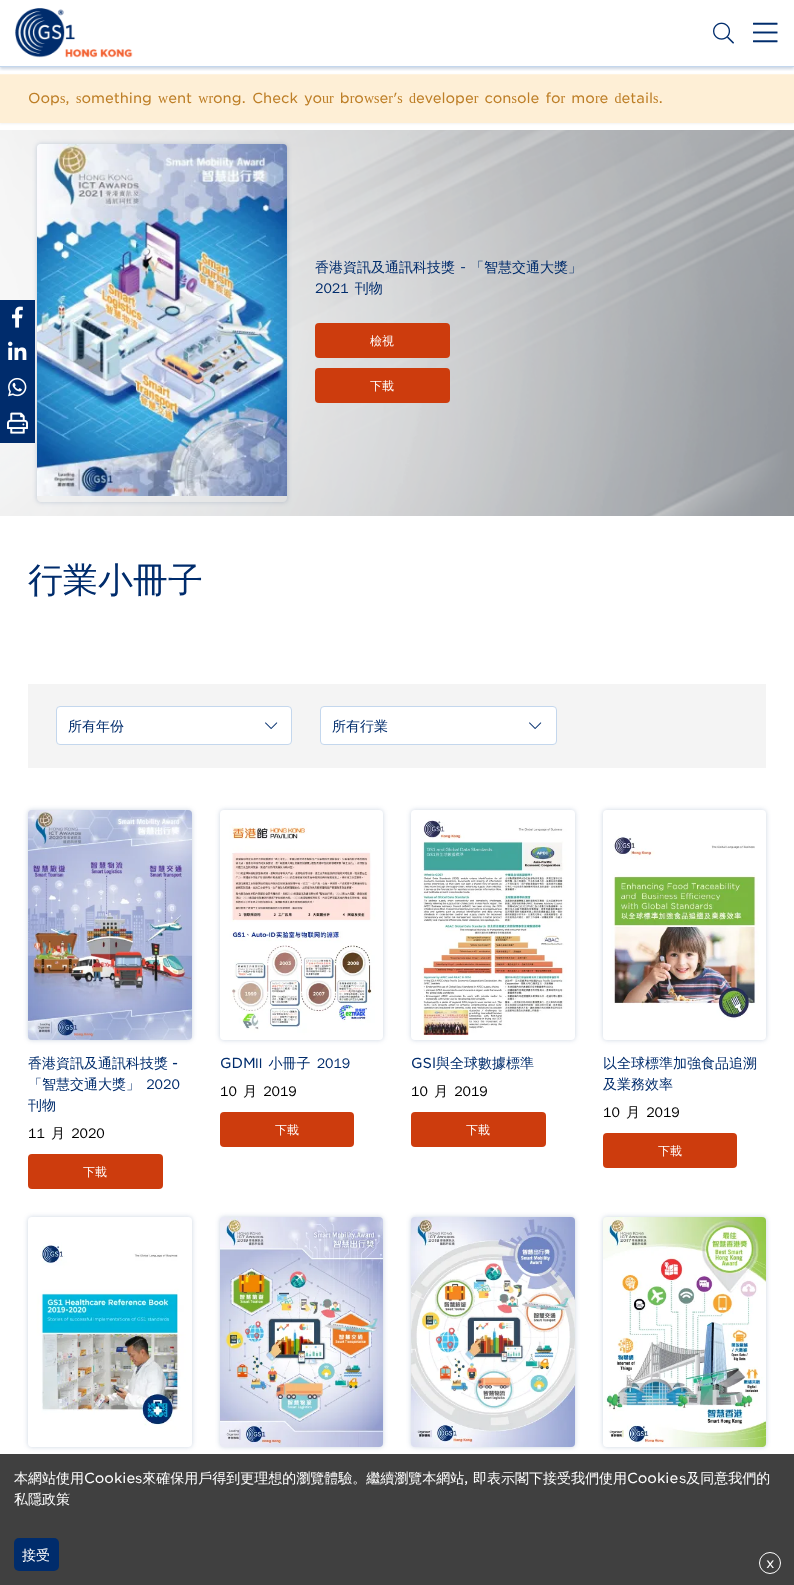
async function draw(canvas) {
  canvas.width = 794;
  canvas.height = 1585;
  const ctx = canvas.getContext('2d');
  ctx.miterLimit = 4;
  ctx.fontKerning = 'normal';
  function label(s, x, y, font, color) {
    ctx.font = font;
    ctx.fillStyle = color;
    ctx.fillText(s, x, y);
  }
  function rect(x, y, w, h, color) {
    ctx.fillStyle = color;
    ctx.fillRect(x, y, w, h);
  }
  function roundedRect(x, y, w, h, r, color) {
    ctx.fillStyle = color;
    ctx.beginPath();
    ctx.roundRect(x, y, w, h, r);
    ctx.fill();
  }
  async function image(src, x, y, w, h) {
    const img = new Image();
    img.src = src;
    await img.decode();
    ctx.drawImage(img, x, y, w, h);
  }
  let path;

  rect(0, 0, 794, 1585, '#fff');
  ctx.fillStyle = '#0000000d';
  ctx.filter = 'blur(1px)';
  ctx.beginPath();
  ctx.rect(0, 75, 794, 49);
  ctx.fill();
  ctx.filter = 'none';
  rect(0, 74, 794, 1, '#fef3e0');
  ctx.save();
  ctx.beginPath();
  ctx.rect(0, 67, 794, 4);
  ctx.clip();
  ctx.fillStyle = '#002c6c33';
  ctx.filter = 'blur(1.5px)';
  ctx.beginPath();
  ctx.rect(0, 2, 794, 67);
  ctx.fill();
  ctx.filter = 'none';
  ctx.restore();
  rect(0, 66, 794, 1, '#c4d7ed');
  await image('assets/img1.png', 15, 8, 118, 50);
  await image('assets/img2.png', 713, 22, 21, 22);
  await image('assets/img3.png', 753, 22, 25, 21);
  rect(0, 75, 794, 48, '#feefd6');
  ctx.wordSpacing = '1.75px';
  label('Oops, something went wrong. Check your browser\'s developer console for more details.', 28, 103, '300 14px "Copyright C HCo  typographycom"', '#bd7e26');
  await image('assets/img8.png', 0, 130, 794, 386);
  ctx.save();
  path = new Path2D('M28 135H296V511H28ZM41 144H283C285 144 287 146 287 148V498C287 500 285 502 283 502H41C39 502 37 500 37 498V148C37 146 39 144 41 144Z');
  ctx.clip(path, 'evenodd');
  ctx.fillStyle = '#002c6c33';
  ctx.filter = 'blur(2.5px)';
  ctx.beginPath();
  ctx.roundRect(37, 144, 250, 358, 4);
  ctx.fill();
  ctx.filter = 'none';
  ctx.restore();
  rect(0, 300, 35, 143, '#002c6c');
  await image('assets/img4.png', 12, 306, 11, 22);
  await image('assets/img5.png', 8, 341, 19, 19);
  await image('assets/img6.png', 8, 377, 19, 20);
  await image('assets/img7.png', 7, 412, 21, 22);
  await image('assets/img9.png', 37, 144, 250, 352);
  ctx.wordSpacing = '0px';
  label('香港資訊及通訊科技獎', 315, 272, '500 14px WenQuanYi Zen Hei', '#002c6c');
  label('-', 460, 272, '300 14px "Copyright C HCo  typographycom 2"', '#002c6c');
  label('「智慧交通大獎」', 470, 272, '500 14px WenQuanYi Zen Hei', '#002c6c');
  ctx.wordSpacing = '2px';
  label('2021 刊物', 315, 293, '500 14px WenQuanYi Zen Hei', '#002c6c');
  roundedRect(315, 323, 135, 35, 4, '#cd3c0d');
  ctx.wordSpacing = '0px';
  label('檢視', 370, 345, '500 12px WenQuanYi Zen Hei', '#fff');
  roundedRect(315, 368, 135, 35, 4, '#cd3c0d');
  label('下載', 370, 390, '500 12px WenQuanYi Zen Hei', '#fff');
  label('行業小冊子', 28, 592, '500 35px WenQuanYi Zen Hei', '#002c6c');
  rect(28, 684, 738, 84, '#f4f4f4');
  ctx.fillStyle = '#fff';
  ctx.beginPath();
  ctx.roundRect(56.5, 706.5, 235, 38, 3.5);
  ctx.fill();
  ctx.strokeStyle = '#c4d7ed';
  ctx.stroke();
  label('所有年份', 68, 731, '500 14px WenQuanYi Zen Hei', '#002c6c');
  await image('assets/img10.png', 265, 722, 13, 7);
  ctx.fillStyle = '#fff';
  ctx.beginPath();
  ctx.roundRect(320.5, 706.5, 236, 38, 3.5);
  ctx.fill();
  ctx.stroke();
  label('所有行業', 332, 731, '500 14px WenQuanYi Zen Hei', '#002c6c');
  await image('assets/img10.png', 529, 722, 13, 7);
  ctx.fillStyle = '#002c6c33';
  ctx.filter = 'blur(2.5px)';
  ctx.beginPath();
  ctx.roundRect(28, 810, 164, 230, 4);
  ctx.fill();
  ctx.filter = 'none';
  await image('assets/img11.png', 28, 810, 164, 230);
  label('香港資訊及通訊科技獎', 28, 1068, '500 14px WenQuanYi Zen Hei', '#002c6c');
  label('-', 172, 1068, '300 14px "Copyright C HCo  typographycom"', '#002c6c');
  ctx.wordSpacing = '2px';
  label('「智慧交通大獎」 2020', 28, 1089, '500 14px WenQuanYi Zen Hei', '#002c6c');
  ctx.wordSpacing = '0px';
  label('刊物', 28, 1110, '500 14px WenQuanYi Zen Hei', '#002c6c');
  ctx.wordSpacing = '2px';
  label('11 月 2020', 28, 1138, '500 14px WenQuanYi Zen Hei', '#000');
  roundedRect(28, 1154, 135, 35, 4, '#cd3c0d');
  ctx.wordSpacing = '0px';
  label('下載', 83, 1176, '500 12px WenQuanYi Zen Hei', '#fff');
  ctx.fillStyle = '#002c6c33';
  ctx.filter = 'blur(2.5px)';
  ctx.beginPath();
  ctx.roundRect(220, 810, 163, 230, 4);
  ctx.fill();
  ctx.filter = 'none';
  await image('assets/img12.png', 220, 810, 163, 230);
  label('GDM', 220, 1068, '300 14px "Copyright C HCo  typographycom"', '#002c6c');
  ctx.wordSpacing = '2px';
  label('II 小冊子 2019', 255, 1068, '500 14px WenQuanYi Zen Hei', '#002c6c');
  label('10 月 2019', 220, 1096, '500 14px WenQuanYi Zen Hei', '#000');
  roundedRect(220, 1112, 134, 35, 4, '#cd3c0d');
  ctx.wordSpacing = '0px';
  label('下載', 275, 1134, '500 12px WenQuanYi Zen Hei', '#fff');
  ctx.fillStyle = '#002c6c33';
  ctx.filter = 'blur(2.5px)';
  ctx.beginPath();
  ctx.roundRect(411, 810, 164, 230, 4);
  ctx.fill();
  ctx.filter = 'none';
  await image('assets/img13.png', 411, 810, 164, 230);
  label('GSl', 411, 1068, '300 14px "Copyright C HCo  typographycom"', '#002c6c');
  label('與全球數據標準', 436, 1068, '500 14px WenQuanYi Zen Hei', '#002c6c');
  ctx.wordSpacing = '2px';
  label('10 月 2019', 411, 1096, '500 14px WenQuanYi Zen Hei', '#000');
  roundedRect(411, 1112, 135, 35, 4, '#cd3c0d');
  ctx.wordSpacing = '0px';
  label('下載', 466, 1134, '500 12px WenQuanYi Zen Hei', '#fff');
  ctx.fillStyle = '#002c6c33';
  ctx.filter = 'blur(2.5px)';
  ctx.beginPath();
  ctx.roundRect(603, 810, 163, 230, 4);
  ctx.fill();
  ctx.filter = 'none';
  await image('assets/img14.png', 603, 810, 163, 230);
  label('以全球標準加強食品追溯', 603, 1068, '500 14px WenQuanYi Zen Hei', '#002c6c');
  label('及業務效率', 603, 1089, '500 14px WenQuanYi Zen Hei', '#002c6c');
  ctx.wordSpacing = '2px';
  label('10 月 2019', 603, 1117, '500 14px WenQuanYi Zen Hei', '#000');
  roundedRect(603, 1133, 134, 35, 4, '#cd3c0d');
  ctx.wordSpacing = '0px';
  label('下載', 658, 1155, '500 12px WenQuanYi Zen Hei', '#fff');
  ctx.fillStyle = '#002c6c33';
  ctx.filter = 'blur(2.5px)';
  ctx.beginPath();
  ctx.roundRect(28, 1217, 164, 230, 4);
  ctx.fill();
  ctx.filter = 'none';
  await image('assets/img15.png', 28, 1217, 164, 230);
  ctx.filter = 'blur(2.5px)';
  ctx.beginPath();
  ctx.roundRect(220, 1217, 163, 230, 4);
  ctx.fill();
  ctx.filter = 'none';
  await image('assets/img16.png', 220, 1217, 163, 230);
  ctx.filter = 'blur(2.5px)';
  ctx.beginPath();
  ctx.roundRect(411, 1217, 164, 230, 4);
  ctx.fill();
  ctx.filter = 'none';
  await image('assets/img17.png', 411, 1217, 164, 230);
  ctx.filter = 'blur(2.5px)';
  ctx.beginPath();
  ctx.roundRect(603, 1217, 163, 230, 4);
  ctx.fill();
  ctx.filter = 'none';
  await image('assets/img18.png', 603, 1217, 163, 230);
  rect(0, 1454, 794, 131, '#404040');
  label('本網站使用', 14, 1483, '500 14px WenQuanYi Zen Hei', '#fff');
  label('Cookie', 84, 1483, '300 14px "Copyright C HCo  typographycom"', '#fff');
  label('s來確保用戶得到更理想的瀏覽體驗。繼續瀏覽本網站', 135, 1483, '500 14px WenQuanYi Zen Hei', '#fff');
  label(',', 464, 1483, '300 14px "Copyright C HCo  typographycom"', '#fff');
  label('即表示閣下接受我們使用', 473, 1483, '500 14px WenQuanYi Zen Hei', '#fff');
  label('Cookie', 627, 1483, '300 14px "Copyright C HCo  typographycom"', '#fff');
  label('s及同意我們的', 679, 1483, '500 14px WenQuanYi Zen Hei', '#fff');
  label('私隱政策', 14, 1504, '500 14px WenQuanYi Zen Hei', '#fff');
  roundedRect(14, 1538, 45, 33, 5, '#002c6c');
  label('接受', 22, 1560, '500 14px WenQuanYi Zen Hei', '#fff');
  ctx.beginPath();
  ctx.arc(770, 1563, 10.5, 0, 2 * Math.PI);
  ctx.strokeStyle = '#fff';
  ctx.stroke();
  label('x', 766, 1568, '300 14px "Copyright C HCo  typographycom"', '#fff');
}

draw(document.querySelector('canvas'));
